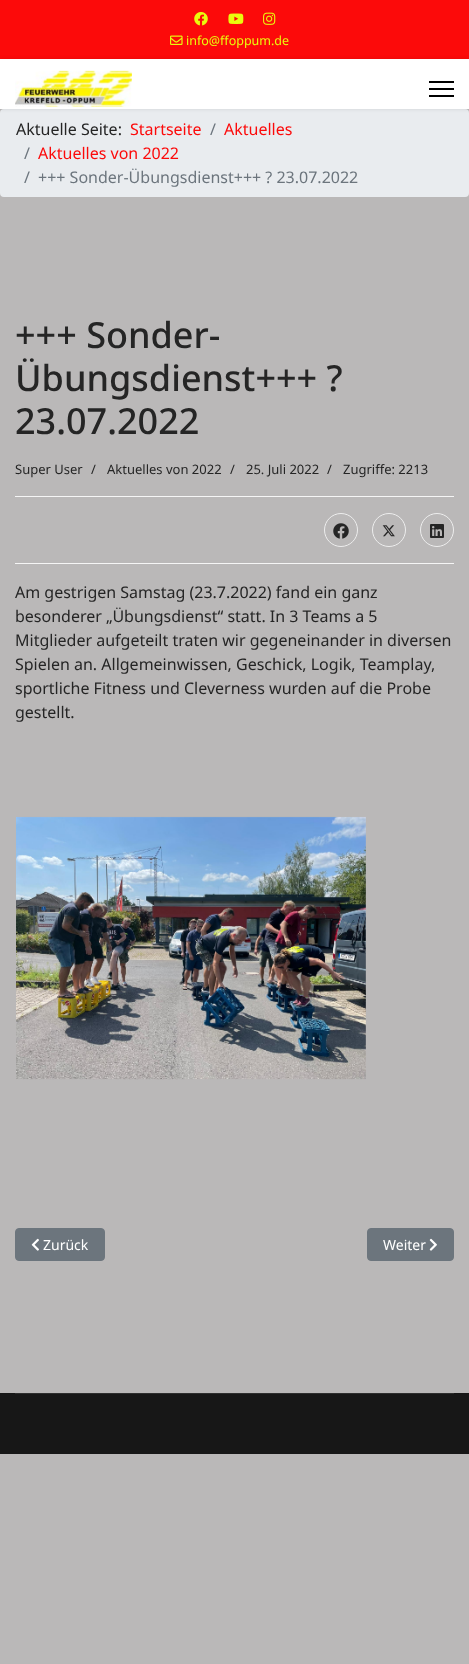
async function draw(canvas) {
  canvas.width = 469;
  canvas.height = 1664;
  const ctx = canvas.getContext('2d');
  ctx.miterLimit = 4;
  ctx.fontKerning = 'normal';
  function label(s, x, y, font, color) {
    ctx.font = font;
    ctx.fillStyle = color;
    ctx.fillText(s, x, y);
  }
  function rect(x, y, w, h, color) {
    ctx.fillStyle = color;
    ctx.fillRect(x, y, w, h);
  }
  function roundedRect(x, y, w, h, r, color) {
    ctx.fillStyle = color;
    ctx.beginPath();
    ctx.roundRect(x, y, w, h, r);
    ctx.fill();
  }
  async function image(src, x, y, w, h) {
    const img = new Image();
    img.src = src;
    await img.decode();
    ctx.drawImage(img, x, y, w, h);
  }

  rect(0, 0, 469, 1664, '#bab8b8');
  rect(0, 0, 469, 59, '#fc0a0a');
  await image('assets/img1.png', 194, 12, 14, 14);
  await image('assets/img2.png', 228, 13, 16, 11);
  await image('assets/img3.png', 263, 12, 13, 13);
  await image('assets/img4.png', 170, 35, 13, 10);
  label('info@ffoppum.de', 186, 45, '12.5px Noto Sans', '#eafa0d');
  roundedRect(0, 109, 469, 88, 4, '#e9ecef');
  ctx.fillStyle = '#0000001a';
  ctx.filter = 'blur(2px)';
  ctx.beginPath();
  ctx.rect(0, 59, 469, 50);
  ctx.fill();
  ctx.filter = 'none';
  rect(0, 59, 469, 50, '#fff');
  await image('assets/img5.png', 15, 70, 117, 37);
  rect(429, 81, 25, 2, '#000');
  rect(429, 88, 25, 2, '#000');
  rect(429, 95, 25, 2, '#000');
  label('Aktuelle Seite:', 16, 135, '16px Noto Sans', '#252525');
  label('Startseite', 130, 135, '16px Noto Sans', '#fc0a0a');
  label('/', 210, 135, '16px Noto Sans', '#6c757d');
  label('Aktuelles', 224, 135, '16px Noto Sans', '#fc0a0a');
  label('/', 24, 159, '16px Noto Sans', '#6c757d');
  label('Aktuelles von 2022', 38, 159, '16px Noto Sans', '#fc0a0a');
  label('/', 24, 183, '16px Noto Sans', '#6c757d');
  label('+++ Sonder-Übungsdienst+++ ? 23.07.2022', 38, 183, '16px Noto Sans', '#6c757d');
  label('+++ Sonder-', 15, 348, '500 36px Noto Sans', '#252525');
  label('Übungsdienst+++ ?', 15, 391, '500 36px Noto Sans', '#252525');
  label('23.07.2022', 15, 434, '500 36px Noto Sans', '#252525');
  label('Super User', 15, 474, '13px Noto Sans', '#252525');
  label('/', 91, 474, '13px Noto Sans', '#252525');
  label('Aktuelles von 2022', 107, 474, '13px Noto Sans', '#252525');
  label('/', 230, 474, '13px Noto Sans', '#252525');
  label('25. Juli 2022', 246, 474, '13px Noto Sans', '#252525');
  label('/', 327, 474, '13px Noto Sans', '#252525');
  label('Zugriffe: 2213', 343, 474, '13px Noto Sans', '#252525');
  rect(15, 496, 439, 1, '#f5f5f5');
  rect(15, 563, 439, 1, '#f5f5f5');
  ctx.beginPath();
  ctx.arc(341, 530, 16.5, 0, 2 * Math.PI);
  ctx.strokeStyle = '#ededed';
  ctx.stroke();
  await image('assets/img6.png', 333, 523, 16, 16);
  ctx.beginPath();
  ctx.arc(389, 530, 16.5, 0, 2 * Math.PI);
  ctx.stroke();
  await image('assets/img7.png', 382, 525, 13, 12);
  ctx.beginPath();
  ctx.arc(437, 530, 16.5, 0, 2 * Math.PI);
  ctx.stroke();
  await image('assets/img8.png', 430, 524, 14, 14);
  label('Am gestrigen Samstag (23.7.2022) fand ein ganz', 15, 598, '16px Noto Sans', '#252525');
  label('besonderer „Übungsdienst“ statt. In 3 Teams a 5', 15, 622, '16px Noto Sans', '#252525');
  label('Mitglieder aufgeteilt traten wir gegeneinander in diversen', 15, 646, '16px Noto Sans', '#252525');
  label('Spielen an. Allgemeinwissen, Geschick, Logik, Teamplay,', 15, 670, '16px Noto Sans', '#252525');
  label('sportliche Fitness und Cleverness wurden auf die Probe', 15, 694, '16px Noto Sans', '#252525');
  label('gestellt.', 15, 718, '16px Noto Sans', '#252525');
  await image('assets/img9.png', 16, 816, 350, 264);
  ctx.fillStyle = '#6c757d';
  ctx.beginPath();
  ctx.roundRect(15.5, 1228.5, 89, 32, 3.5);
  ctx.fill();
  ctx.strokeStyle = '#6c757d';
  ctx.stroke();
  await image('assets/img10.png', 31, 1238, 8, 13);
  label('Zurück', 43, 1250, '14px Noto Sans', '#fff');
  ctx.fillStyle = '#6c757d';
  ctx.beginPath();
  ctx.roundRect(367.5, 1228.5, 86, 32, 3.5);
  ctx.fill();
  ctx.stroke();
  label('Weiter', 383, 1250, '14px Noto Sans', '#fff');
  await image('assets/img11.png', 429, 1238, 8, 13);
  rect(0, 1393, 469, 61, '#171717');
  rect(15, 1393, 439, 1, '#2e2e2e');
}

draw(document.querySelector('canvas'));
